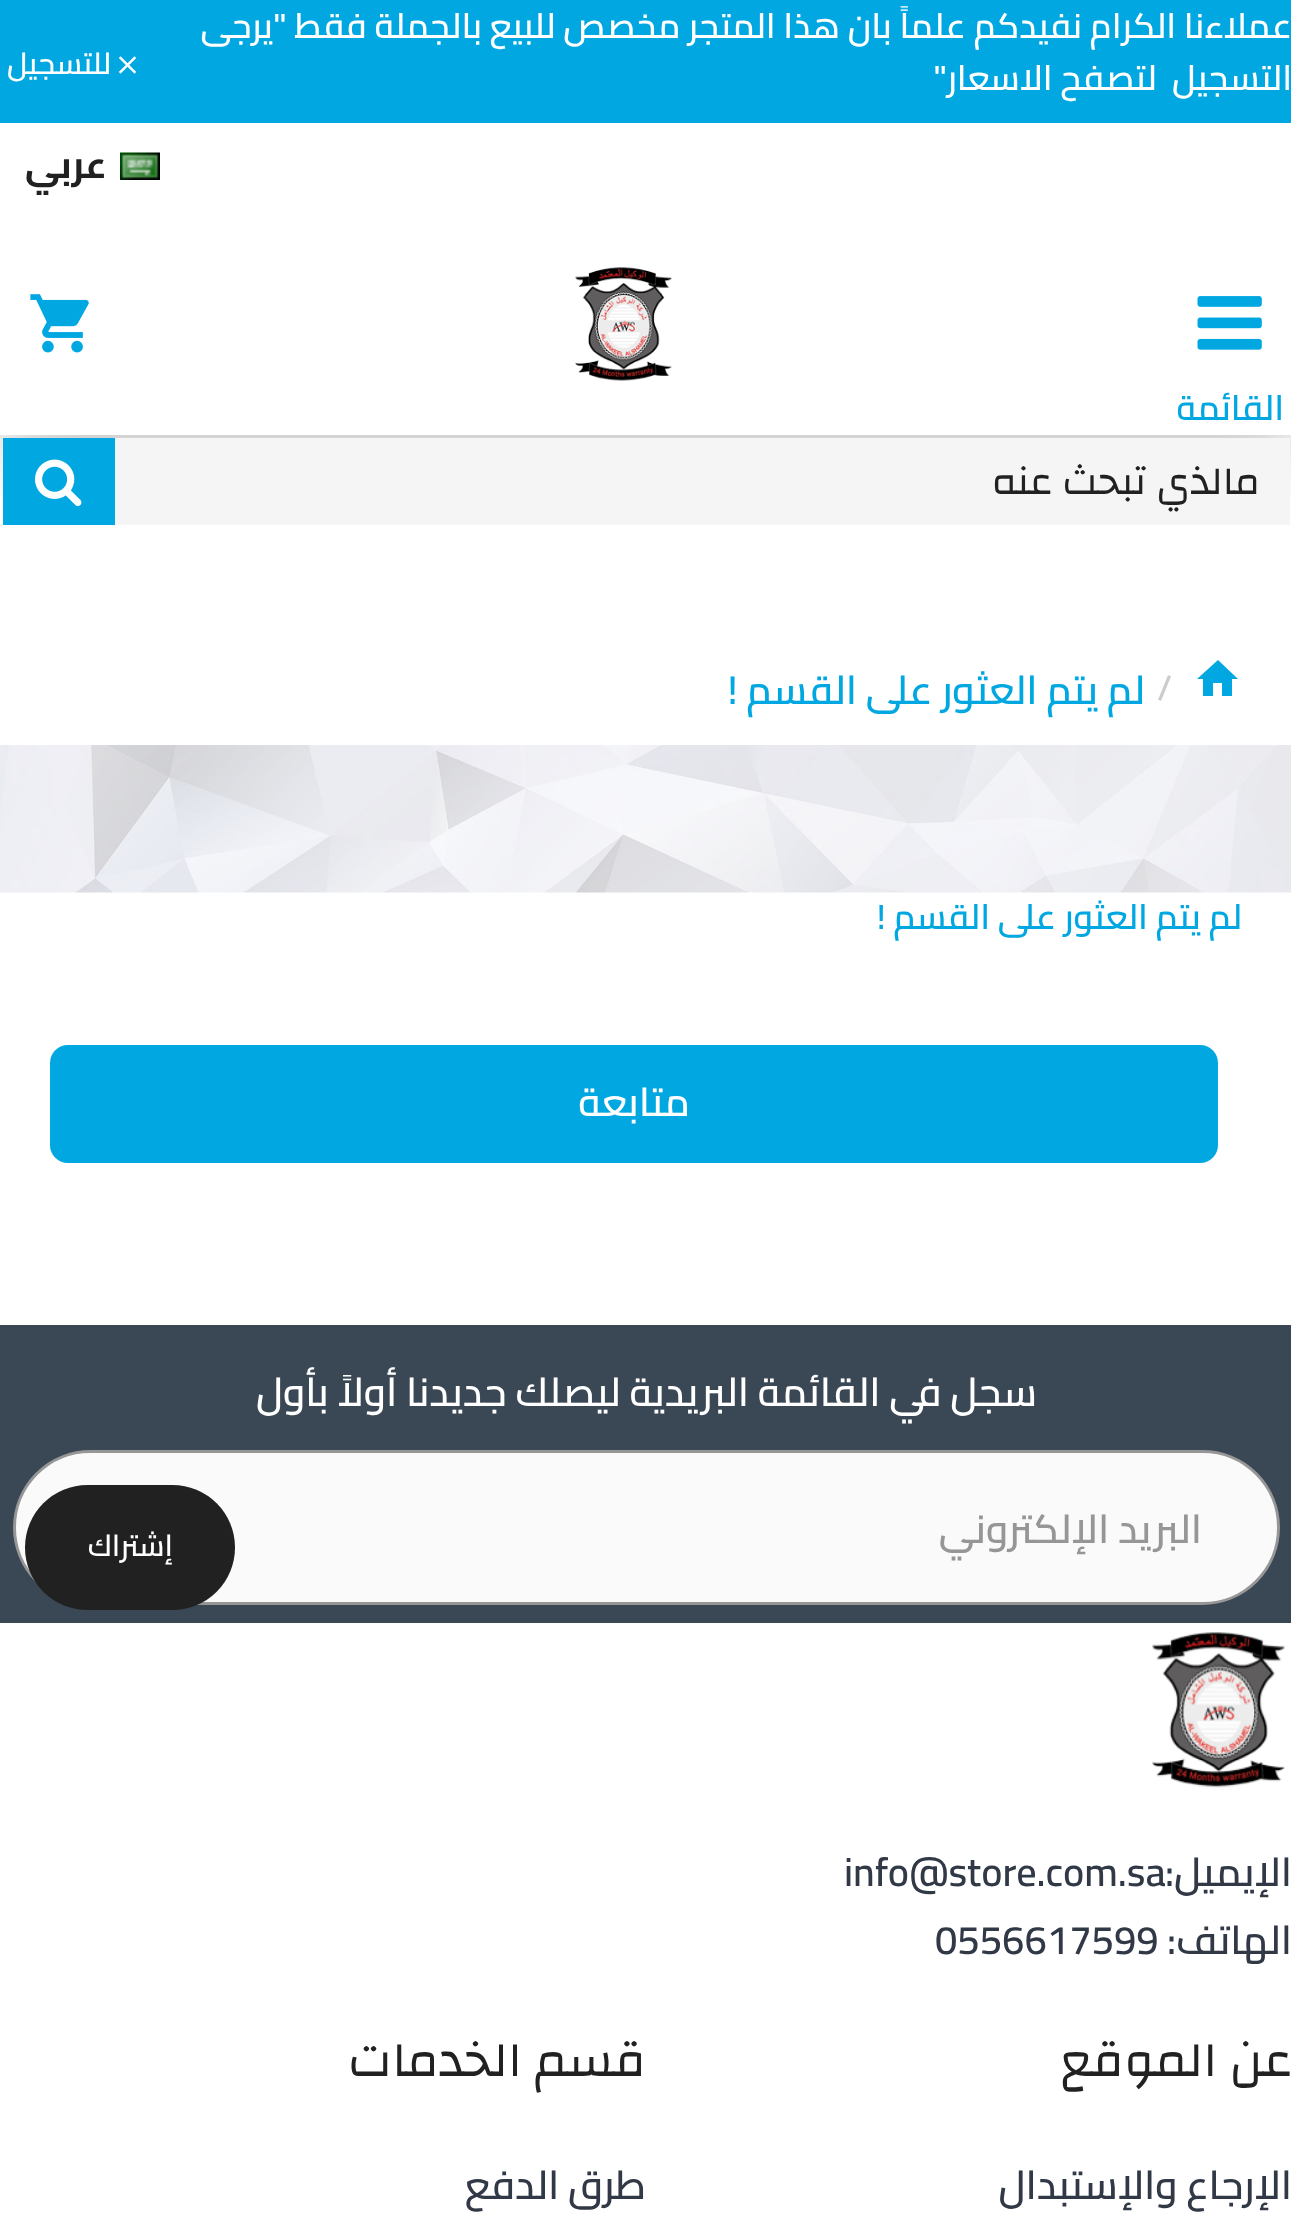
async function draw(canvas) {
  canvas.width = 1291;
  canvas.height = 2234;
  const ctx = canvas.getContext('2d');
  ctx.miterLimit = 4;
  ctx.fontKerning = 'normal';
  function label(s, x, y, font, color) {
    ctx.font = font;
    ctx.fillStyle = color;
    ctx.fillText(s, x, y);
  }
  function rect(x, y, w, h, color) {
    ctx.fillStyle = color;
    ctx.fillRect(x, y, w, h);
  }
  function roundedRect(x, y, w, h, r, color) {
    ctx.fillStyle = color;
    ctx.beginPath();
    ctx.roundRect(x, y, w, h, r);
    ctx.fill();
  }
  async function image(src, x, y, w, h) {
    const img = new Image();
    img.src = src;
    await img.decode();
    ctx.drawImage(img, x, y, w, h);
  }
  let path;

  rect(0, 0, 1291, 2234, '#fff');
  rect(0, 0, 1291, 123, '#00a7e1');
  ctx.direction = 'rtl';
  label('عملاءنا الكرام نفيدكم علماً بان هذا المتجر مخصص للبيع بالجملة فقط "يرجى', 1292, 38, '600 35px Cairo', '#fff');
  label('التسجيل  لتصفح الاسعار"', 1292, 90, '600 35px Cairo', '#fff');
  await image('assets/img1.png', 118, 56, 19, 18);
  label('للتسجيل', 111, 74, '600 30px Cairo', '#fff');
  ctx.save();
  ctx.beginPath();
  ctx.rect(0, 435, 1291, 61);
  ctx.clip();
  ctx.fillStyle = '#0000003b';
  ctx.filter = 'blur(37.5px)';
  ctx.beginPath();
  ctx.rect(0, 235, 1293, 225);
  ctx.fill();
  ctx.filter = 'none';
  ctx.restore();
  rect(0, 171, 1291, 39, '#fff');
  await image('assets/img2.png', 120, 152, 40, 28);
  label('عربي', 107, 178, 'bold 37.5px Cairo', '#212121');
  await image('assets/img3.png', 575, 267, 97, 114);
  await image('assets/img4.png', 30, 294, 59, 59);
  await image('assets/img5.png', 1197, 296, 65, 54);
  label('القائمة', 1284, 420, '600 35px Cairo', '#00a7e1');
  rect(115, 438, 1175, 87, '#f5f5f5');
  label('مالذي تبحث عنه', 1260, 494, '40px Changa', '#212121');
  rect(3, 438, 112, 87, '#00a7e1');
  await image('assets/img6.png', 35, 459, 47, 47);
  path = new Path2D('M1213 696H1203V679H1197L1218 660L1238 679H1232V696H1222V683H1213Z');
  ctx.fill(path);
  ctx.direction = 'ltr';
  label('/', 1157, 700, '600 35px Cairo', '#ccc');
  ctx.direction = 'rtl';
  label('لم يتم العثور على القسم !', 1145, 704, '600 40px Cairo', '#00a7e1');
  await image('assets/img7.png', 0, 745, 1291, 148);
  label('لم يتم العثور على القسم !', 1242, 929, '600 35px Cairo', '#00a7e1');
  roundedRect(50, 1045, 1168, 118, 18, '#00a7e1');
  label('متابعة', 690, 1116, '600 40px Cairo', '#fff');
  rect(0, 1325, 1291, 298, '#3a4754');
  label('سجل في القائمة البريدية ليصلك جديدنا أولاً بأول', 1037, 1406, '600 40px Cairo', '#fff');
  ctx.fillStyle = '#fafafa';
  ctx.beginPath();
  ctx.roundRect(14.5, 1451.5, 1264, 152, 76);
  ctx.fill();
  ctx.strokeStyle = '#969696';
  ctx.lineWidth = 3;
  ctx.stroke();
  label('البريد الإلكتروني', 1202, 1543, '600 40px Cairo', '#969696');
  roundedRect(25, 1485, 210, 125, 62.5, '#212121');
  label('إشتراك', 173, 1556, '600 30px Cairo', '#fff');
  await image('assets/img8.png', 1152, 1632, 134, 156);
  label('الإيميل:', 1292, 1886, '600 40px Cairo', '#313846');
  ctx.direction = 'ltr';
  label('info@store.com.sa', 844, 1886, '600 40px Cairo', '#313846');
  ctx.direction = 'rtl';
  label('الهاتف:', 1292, 1954, '600 40px Cairo', '#313846');
  ctx.direction = 'ltr';
  label('0556617599', 935, 1954, '600 40px Cairo', '#313846');
  ctx.direction = 'rtl';
  label('عن الموقع', 1292, 2076, '50px Changa', '#212121');
  label('الإرجاع والإستبدال', 1292, 2199, '600 40px Cairo', '#313846');
  label('قسم الخدمات', 646, 2076, '50px Changa', '#212121');
  label('طرق الدفع', 646, 2199, '600 40px Cairo', '#313846');
}

draw(document.querySelector('canvas'));
